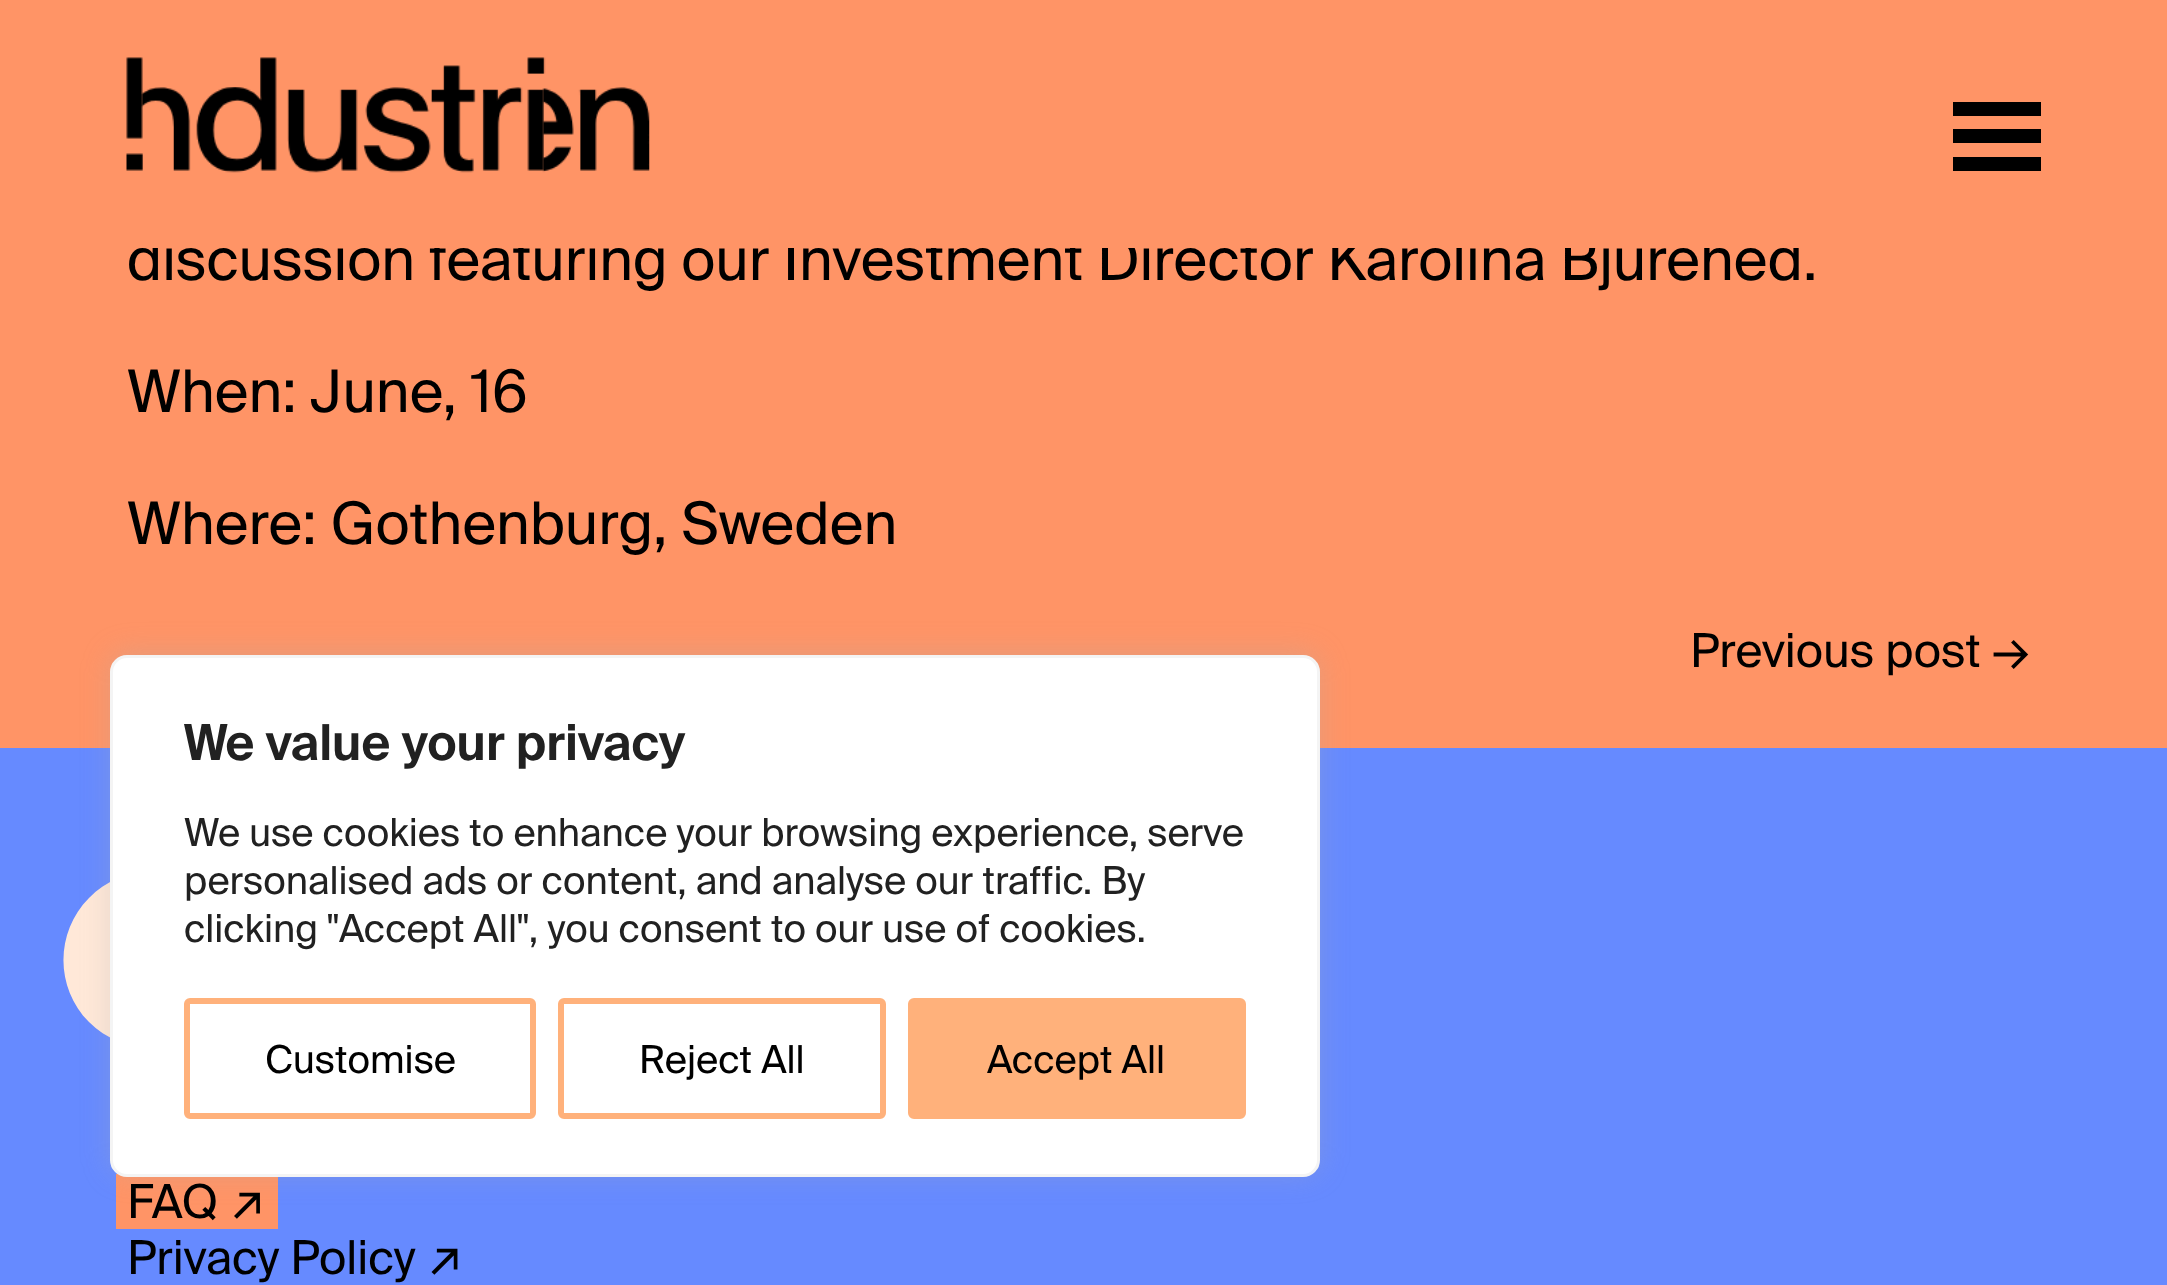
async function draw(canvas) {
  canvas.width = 2167;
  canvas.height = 1285;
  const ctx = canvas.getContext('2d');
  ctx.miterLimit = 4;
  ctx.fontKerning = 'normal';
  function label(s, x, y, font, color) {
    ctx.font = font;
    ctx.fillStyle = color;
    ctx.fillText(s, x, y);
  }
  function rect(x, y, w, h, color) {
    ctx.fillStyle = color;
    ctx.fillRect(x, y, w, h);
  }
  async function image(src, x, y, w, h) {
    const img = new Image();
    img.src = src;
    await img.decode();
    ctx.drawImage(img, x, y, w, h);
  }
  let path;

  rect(0, 0, 2167, 1285, '#668aff');
  rect(0, 248, 2167, 500, '#ff9466');
  ctx.wordSpacing = '-0.25px';
  label('discussion featuring our Investment Director Karolina Bjurehed.', 127, 280, '58.5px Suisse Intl', '#000');
  rect(0, 0, 2167, 248, '#ff9466');
  await image('assets/img1.png', 126, 57, 524, 116);
  rect(1953, 102, 88, 14, '#000');
  rect(1953, 129, 88, 14, '#000');
  rect(1953, 157, 88, 14, '#000');
  ctx.wordSpacing = '0px';
  label('When: June, 16', 127, 412, '58.5px Suisse Intl', '#000');
  label('Where: Gothenburg, Sweden', 127, 544, '58.5px Suisse Intl', '#000');
  label('Previous post →', 1690, 667, '46.75px Suisse Intl', '#000');
  ctx.fillStyle = '#ffe8d8';
  path = new Path2D('M89 898C123 863 179 863 213 898C248 932 248 988 213 1022C179 1056 123 1056 89 1022C55 988 55 932 89 898Z');
  ctx.fill(path);
  rect(116, 1174, 162, 55, '#ff9466');
  ctx.fillStyle = '#acabab4d';
  ctx.filter = 'blur(14px)';
  ctx.beginPath();
  ctx.roundRect(110, 652, 1210, 522, 17);
  ctx.fill();
  ctx.filter = 'none';
  ctx.fillStyle = '#fff';
  ctx.beginPath();
  ctx.roundRect(111.5, 656.5, 1207, 519, 15.5);
  ctx.fill();
  ctx.strokeStyle = '#f4f4f4';
  ctx.lineWidth = 3;
  ctx.stroke();
  label('We value your privacy', 184, 760, '600 49.5px Suisse Intl', '#212121');
  label('We use cookies to enhance your browsing experience, serve', 184, 846, '38.5px Suisse Intl', '#212121');
  label('personalised ads or content, and analyse our traffic. By', 184, 894, '38.5px Suisse Intl', '#212121');
  label('clicking "Accept All", you consent to our use of cookies.', 184, 942, '38.5px Suisse Intl', '#212121');
  ctx.beginPath();
  ctx.roundRect(187, 1001, 346, 115, 3);
  ctx.strokeStyle = '#ffb17b';
  ctx.lineWidth = 6;
  ctx.stroke();
  label('Customise', 265, 1073, '38.5px Suisse Intl', '#000');
  ctx.beginPath();
  ctx.roundRect(561, 1001, 322, 115, 3);
  ctx.stroke();
  label('Reject All', 639, 1073, '38.5px Suisse Intl', '#000');
  ctx.fillStyle = '#ffb17b';
  ctx.beginPath();
  ctx.roundRect(911, 1001, 332, 115, 3);
  ctx.fill();
  ctx.stroke();
  label('Accept All', 987, 1073, '38.5px Suisse Intl', '#000');
  label('FAQ ↗', 127, 1218, '46.75px Suisse Intl', '#000');
  label('Privacy Policy ↗', 127, 1274, '46.75px Suisse Intl', '#000');
}

draw(document.querySelector('canvas'));
